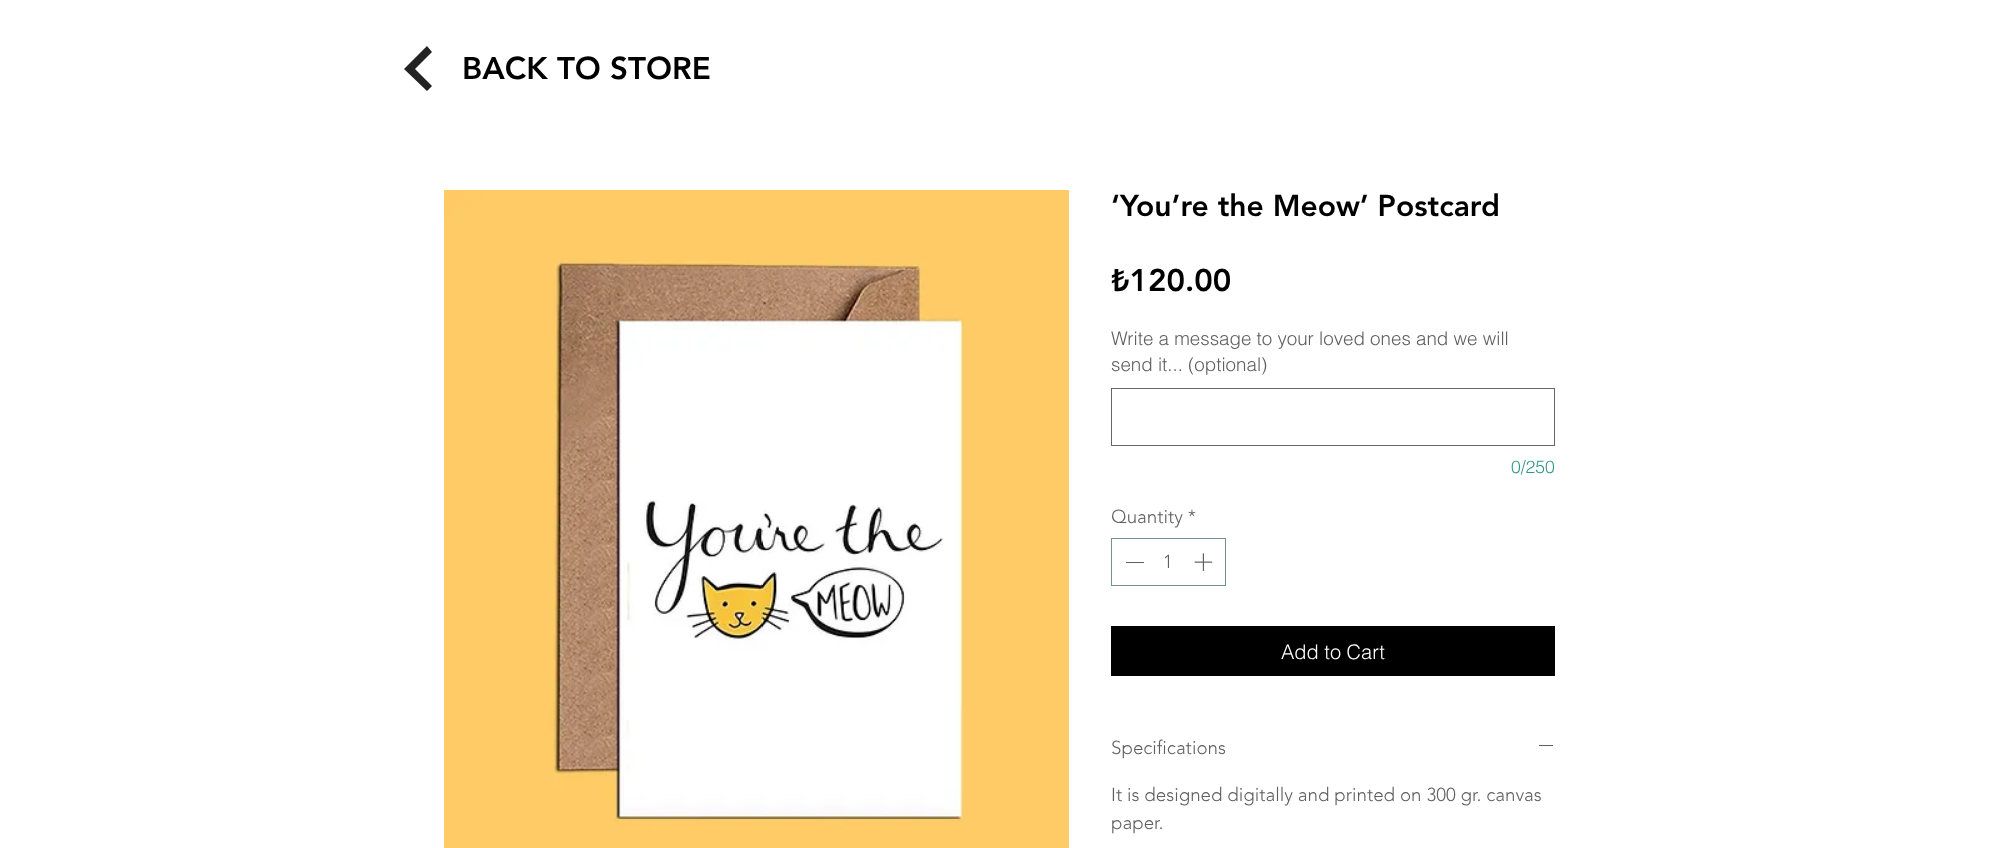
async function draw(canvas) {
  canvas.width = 1996;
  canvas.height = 848;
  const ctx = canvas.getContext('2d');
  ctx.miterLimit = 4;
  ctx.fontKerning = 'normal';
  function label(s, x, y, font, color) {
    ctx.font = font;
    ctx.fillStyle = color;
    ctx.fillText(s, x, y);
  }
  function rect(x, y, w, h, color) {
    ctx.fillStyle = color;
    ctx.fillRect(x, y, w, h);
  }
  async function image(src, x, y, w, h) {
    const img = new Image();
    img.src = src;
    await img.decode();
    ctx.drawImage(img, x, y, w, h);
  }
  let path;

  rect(0, 0, 1996, 848, '#fff');
  ctx.fillStyle = '#242323';
  path = new Path2D('M404 69L427 91L432 86L415 69L432 52L427 46Z');
  ctx.fill(path);
  label('BACK TO STORE', 462, 79, '900 31.25px "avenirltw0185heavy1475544"', '#000');
  await image('assets/img1.png', 444, 190, 625, 658);
  label('‘You’re the Meow’ Postcard', 1111, 216, '900 30px "avenirltw0185heavy1475544"', '#000');
  label('₺120.00', 1111, 291, '900 31.25px "avenirltw0185heavy1475544"', '#000');
  label('Write a message to your loved ones and we will', 1111, 345, '300 18.75px helvetica', '#605e5e');
  label('send it... (optional)', 1111, 371, '300 18.75px helvetica', '#605e5e');
  ctx.strokeStyle = '#666';
  ctx.strokeRect(1111.5, 388.5, 443, 57);
  label('0/250', 1511, 473, '300 17.5px helvetica', '#309786');
  label('Quantity *', 1111, 523, '300 18.75px "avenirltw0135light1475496"', '#605e5e');
  ctx.strokeStyle = '#74938e';
  ctx.strokeRect(1111.5, 538.5, 114, 47);
  rect(1126, 562, 18, 1, '#605e5e');
  label('1', 1163, 568, '300 18.75px "avenirltw0135light1475496"', '#605e5e');
  await image('assets/img2.png', 1194, 553, 19, 18);
  rect(1111, 626, 444, 50, '#000');
  label('Add to Cart', 1281, 659, '300 20px helvetica', '#fff');
  label('Specifications', 1111, 754, '300 18.75px "avenirltw0135light1475496"', '#605e5e');
  rect(1539, 745, 14, 1, '#605e5e');
  label('It is designed digitally and printed on 300 gr. canvas', 1111, 801, '300 18.75px "avenirltw0135light1475496"', '#605e5e');
  label('paper.', 1111, 829, '300 18.75px "avenirltw0135light1475496"', '#605e5e');
}

draw(document.querySelector('canvas'));
